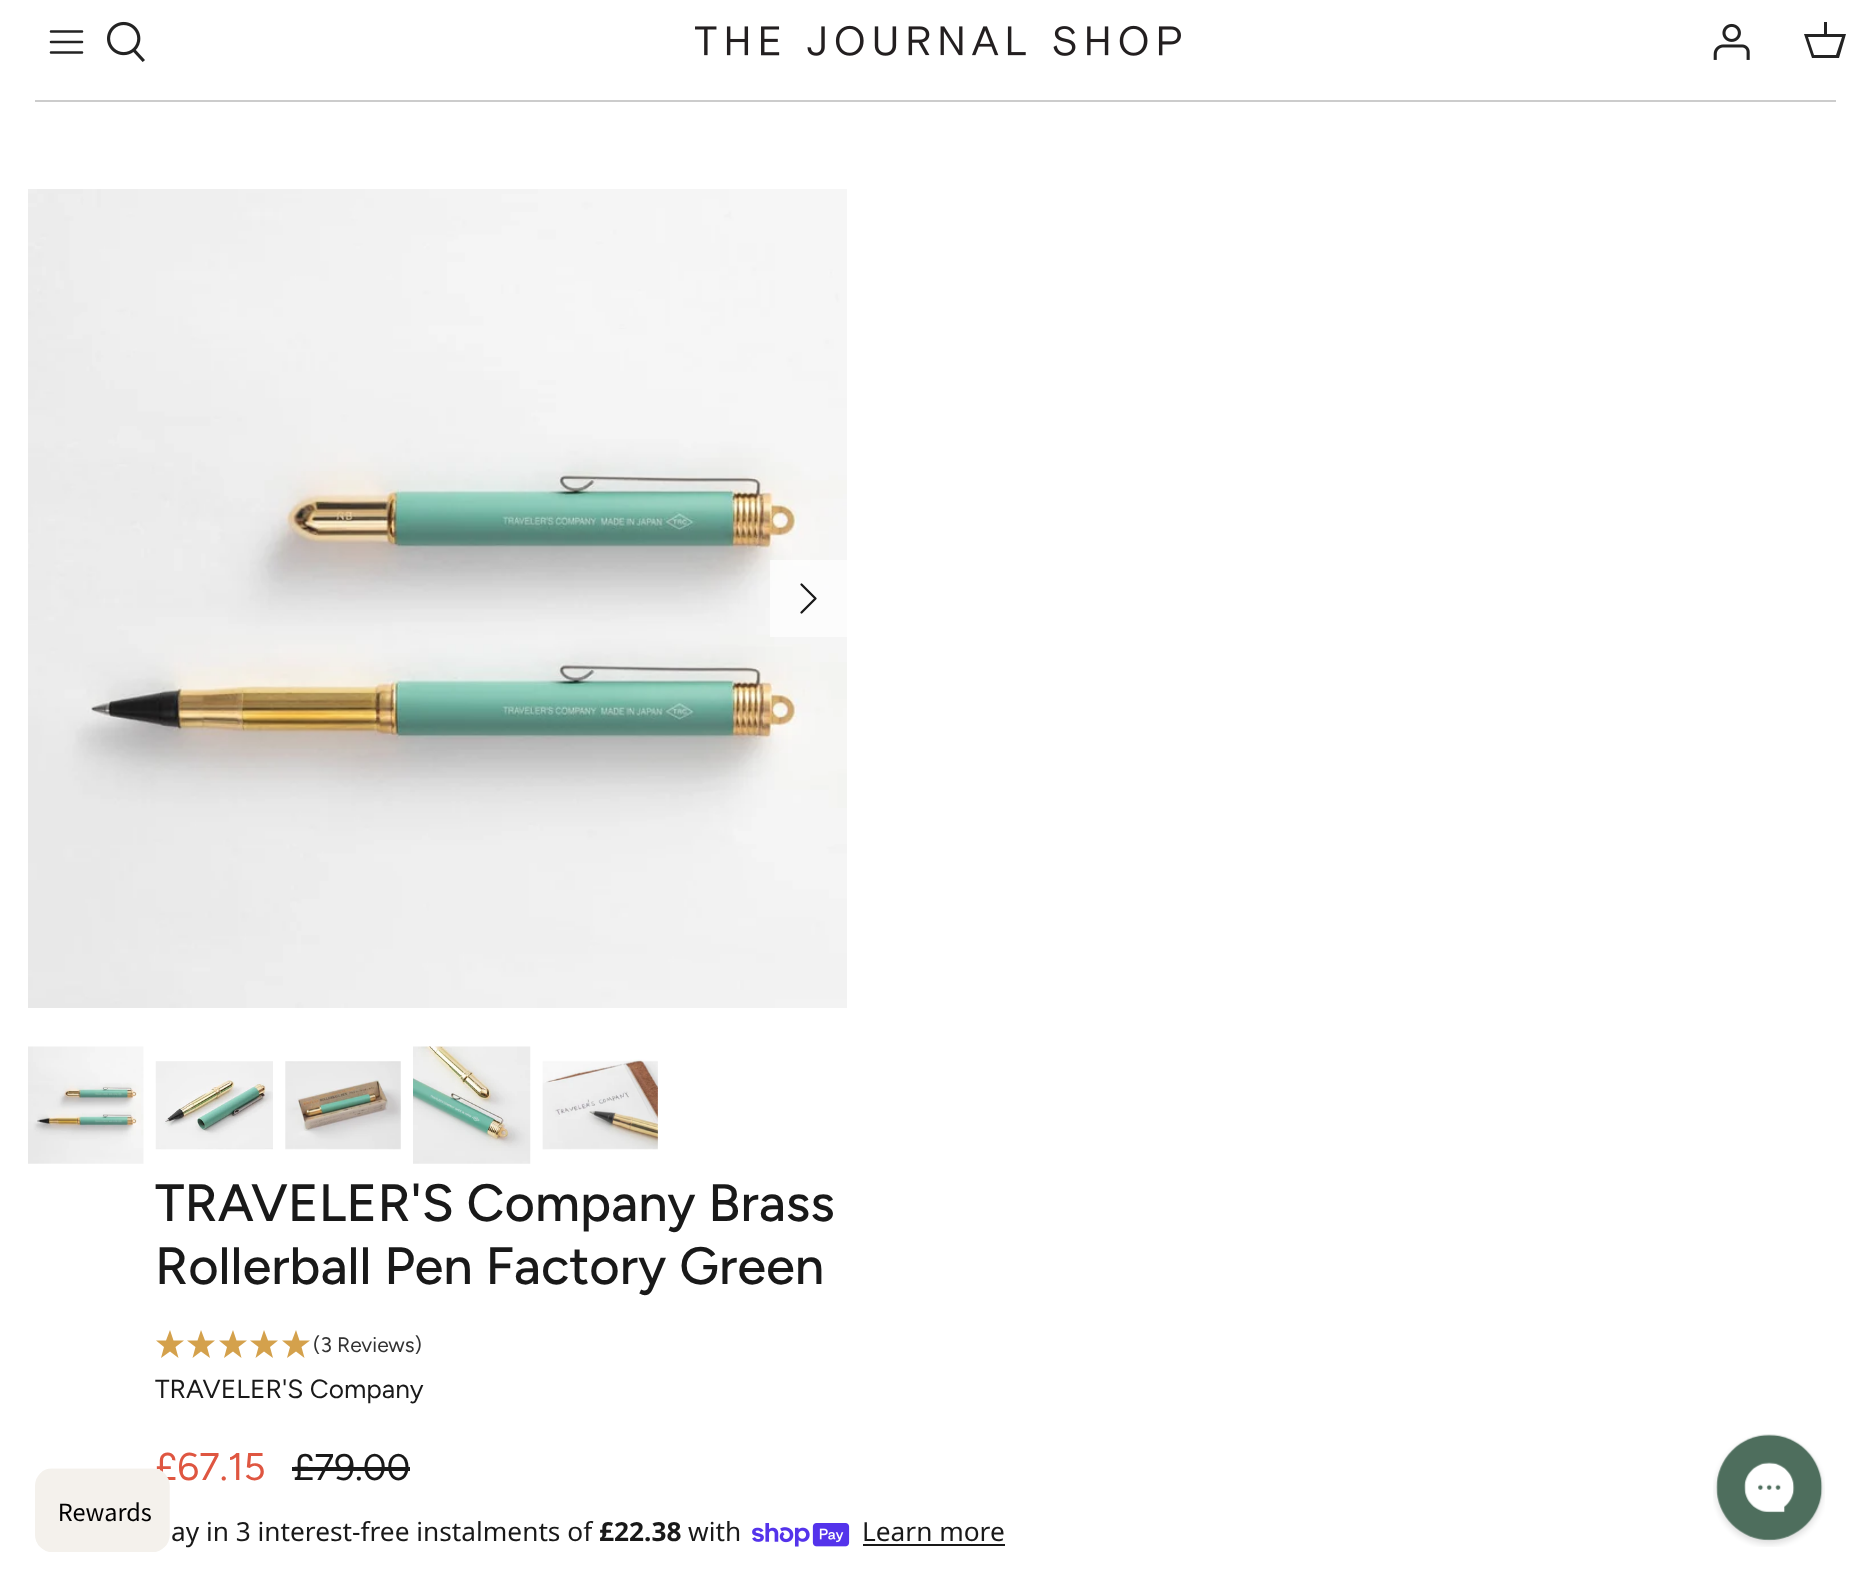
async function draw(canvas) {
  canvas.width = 1874;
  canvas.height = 1587;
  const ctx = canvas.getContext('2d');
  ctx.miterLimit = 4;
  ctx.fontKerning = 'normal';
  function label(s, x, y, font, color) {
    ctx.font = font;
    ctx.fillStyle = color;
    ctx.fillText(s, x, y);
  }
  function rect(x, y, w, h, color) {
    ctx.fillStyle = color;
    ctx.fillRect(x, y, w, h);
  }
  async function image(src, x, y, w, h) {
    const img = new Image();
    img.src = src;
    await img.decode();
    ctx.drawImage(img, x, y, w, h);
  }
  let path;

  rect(0, 0, 1874, 1587, '#fff');
  label('£67.15', 155, 1480, '38.5px Figtree', '#df5641');
  await image('assets/img1.png', 35, 1468, 135, 84);
  path = new Path2D('M51 42H82M51 31.5H82M51 52.5H82');
  ctx.strokeStyle = '#232323';
  ctx.lineWidth = 2.6;
  ctx.lineCap = 'round';
  ctx.lineJoin = 'round';
  ctx.stroke(path);
  await image('assets/img2.png', 107, 21, 38, 41);
  await image('assets/img3.png', 695, 25, 486, 31);
  await image('assets/img4.png', 1713, 23, 37, 37);
  ctx.fillStyle = '#232323';
  path = new Path2D('M1824 34V22H1827V34H1846L1839 58H1812L1804 34ZM1808 37L1814 55H1836L1842 37Z');
  ctx.fill(path);
  rect(35, 100, 1801, 2, '#ccc');
  await image('assets/img5.png', 28, 189, 819, 819);
  rect(770, 560, 77, 77, '#ffffffb3');
  path = new Path2D('M801.5 612.5L815.5 598.5L801.5 584.5');
  ctx.strokeStyle = '#191919';
  ctx.lineWidth = 2.3;
  ctx.stroke(path);
  await image('assets/img6.png', 28, 1046, 116, 118);
  await image('assets/img7.png', 155, 1061, 118, 89);
  await image('assets/img8.png', 285, 1061, 116, 89);
  await image('assets/img9.png', 413, 1046, 118, 118);
  await image('assets/img10.png', 542, 1059, 116, 91);
  label('TRAVELER\'S Company Brass', 155, 1221, '500 52.5px Figtree', '#191919');
  label('Rollerball Pen Factory Green', 155, 1284, '500 52.5px Figtree', '#191919');
  ctx.fillStyle = '#d4a14c';
  path = new Path2D('M184 1340.5L175.5 1347L178.5 1358L170 1351.5L161 1358L164 1347L156 1340.5H166L170 1330L173.5 1340.5ZM215 1340.5L207 1347L210 1358L201 1351.5L192.5 1358L195.5 1347L187 1340.5H197.5L201 1330L205 1340.5Z');
  ctx.fill(path);
  path = new Path2D('M247 1340.5L238.5 1347L241.5 1358L233 1351.5L224 1358L227 1347L219 1340.5H229L233 1330L236.5 1340.5ZM278 1340.5L270 1347L273 1358L264 1351.5L255.5 1358L258.5 1347L250 1340.5H260.5L264 1330L268 1340.5Z');
  ctx.fill(path);
  path = new Path2D('M310 1340.5L301.5 1347L304.5 1358L296 1351.5L287 1358L290 1347L282 1340.5H292L296 1330L299.5 1340.5Z');
  ctx.fill(path);
  label('(3 Reviews)', 313, 1352, '21px Figtree', '#333');
  label('TRAVELER\'S Company', 155, 1398, '26.25px Figtree', '#191919');
  label('£79.00', 293, 1480, '37px Figtree', '#191919');
  rect(292, 1467, 118, 4, '#191919');
  label('ay in 3 interest-free instalments of', 171, 1541, '26.25px Noto Sans', '#191919');
  label('£22.38', 599, 1541, 'bold 26.25px Noto Sans', '#191919');
  label('with', 688, 1541, '26.25px Noto Sans', '#191919');
  await image('assets/img11.png', 752, 1523, 98, 24);
  label('Learn more', 862, 1541, '26.25px Noto Sans', '#191919');
  rect(863, 1544, 142, 2, '#191919');
  await image('assets/img12.png', 1713, 1434, 112, 113);
}

draw(document.querySelector('canvas'));
